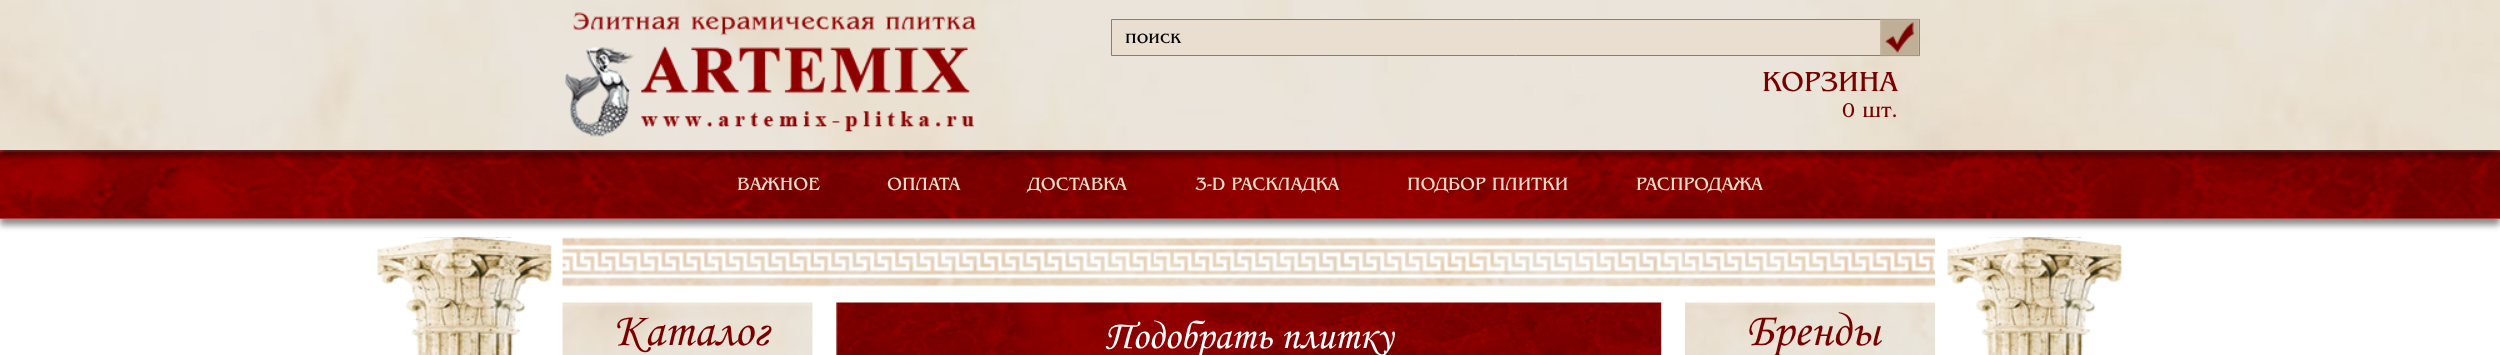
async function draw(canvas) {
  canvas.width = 2500;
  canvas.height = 355;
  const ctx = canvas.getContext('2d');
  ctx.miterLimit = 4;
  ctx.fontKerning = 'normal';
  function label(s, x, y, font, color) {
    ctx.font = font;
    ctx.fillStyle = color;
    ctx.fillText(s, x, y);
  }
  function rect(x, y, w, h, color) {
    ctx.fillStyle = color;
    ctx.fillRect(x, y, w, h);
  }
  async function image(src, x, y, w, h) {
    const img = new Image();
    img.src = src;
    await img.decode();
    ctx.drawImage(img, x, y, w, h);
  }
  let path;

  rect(0, 0, 2500, 355, '#fff');
  ctx.save();
  path = new Path2D('M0 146H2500V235H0ZM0 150H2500V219H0Z');
  ctx.clip(path, 'evenodd');
  ctx.fillStyle = '#02020275';
  ctx.filter = 'blur(3px)';
  ctx.beginPath();
  ctx.rect(0, 156, 2500, 69);
  ctx.fill();
  ctx.filter = 'none';
  ctx.restore();
  await image('assets/img4.png', 0, 150, 2500, 69);
  ctx.fillStyle = '#02020275';
  ctx.filter = 'blur(3px)';
  ctx.beginPath();
  ctx.rect(0, 6, 2500, 150);
  ctx.fill();
  ctx.filter = 'none';
  await image('assets/img1.png', 0, 0, 2500, 150);
  await image('assets/img2.png', 565, 12, 412, 125);
  ctx.fillStyle = '#e9decf';
  ctx.beginPath();
  ctx.rect(1111.5, 19.5, 808, 36);
  ctx.fill();
  ctx.strokeStyle = '#7f7f7f';
  ctx.stroke();
  label('поиск', 1125, 43, '18.75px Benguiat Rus', '#000');
  await image('assets/img3.png', 1880, 18, 40, 39);
  label('КОРЗИНА', 1762, 91, '28.75px Benguiat Rus', '#7a0000');
  label('0 шт.', 1842, 117, '21px Benguiat Rus', '#7a0000');
  label('ВАЖНОЕ', 737, 190, '18.75px Benguiat Rus', '#e8ddca');
  label('ОПЛАТА', 887, 190, '18.75px Benguiat Rus', '#e8ddca');
  label('ДОСТАВКА', 1028, 190, '18.75px Benguiat Rus', '#e8ddca');
  label('3-D РАСКЛАДКА', 1195, 190, '18.75px Benguiat Rus', '#e8ddca');
  label('ПОДБОР ПЛИТКИ', 1407, 190, '18.75px Benguiat Rus', '#e8ddca');
  label('РАСПРОДАЖА', 1636, 190, '18.75px Benguiat Rus', '#e8ddca');
  await image('assets/img5.png', 417, 237, 1666, 118);
  await image('assets/img6.png', 377, 237, 1745, 112);
  await image('assets/img7.png', 562, 237, 1373, 50);
  await image('assets/img8.png', 562, 302, 251, 53);
  label('Каталог', 613, 345, 'italic 47.5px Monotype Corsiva', '#7a0000');
  await image('assets/img9.png', 836, 302, 826, 53);
  label('Подобрать плитку', 1105, 348, 'italic 40px Monotype Corsiva', '#fff');
  await image('assets/img10.png', 1685, 302, 250, 53);
  label('Бренды', 1747, 345, 'italic 47.5px Monotype Corsiva', '#7a0000');
}

draw(document.querySelector('canvas'));
